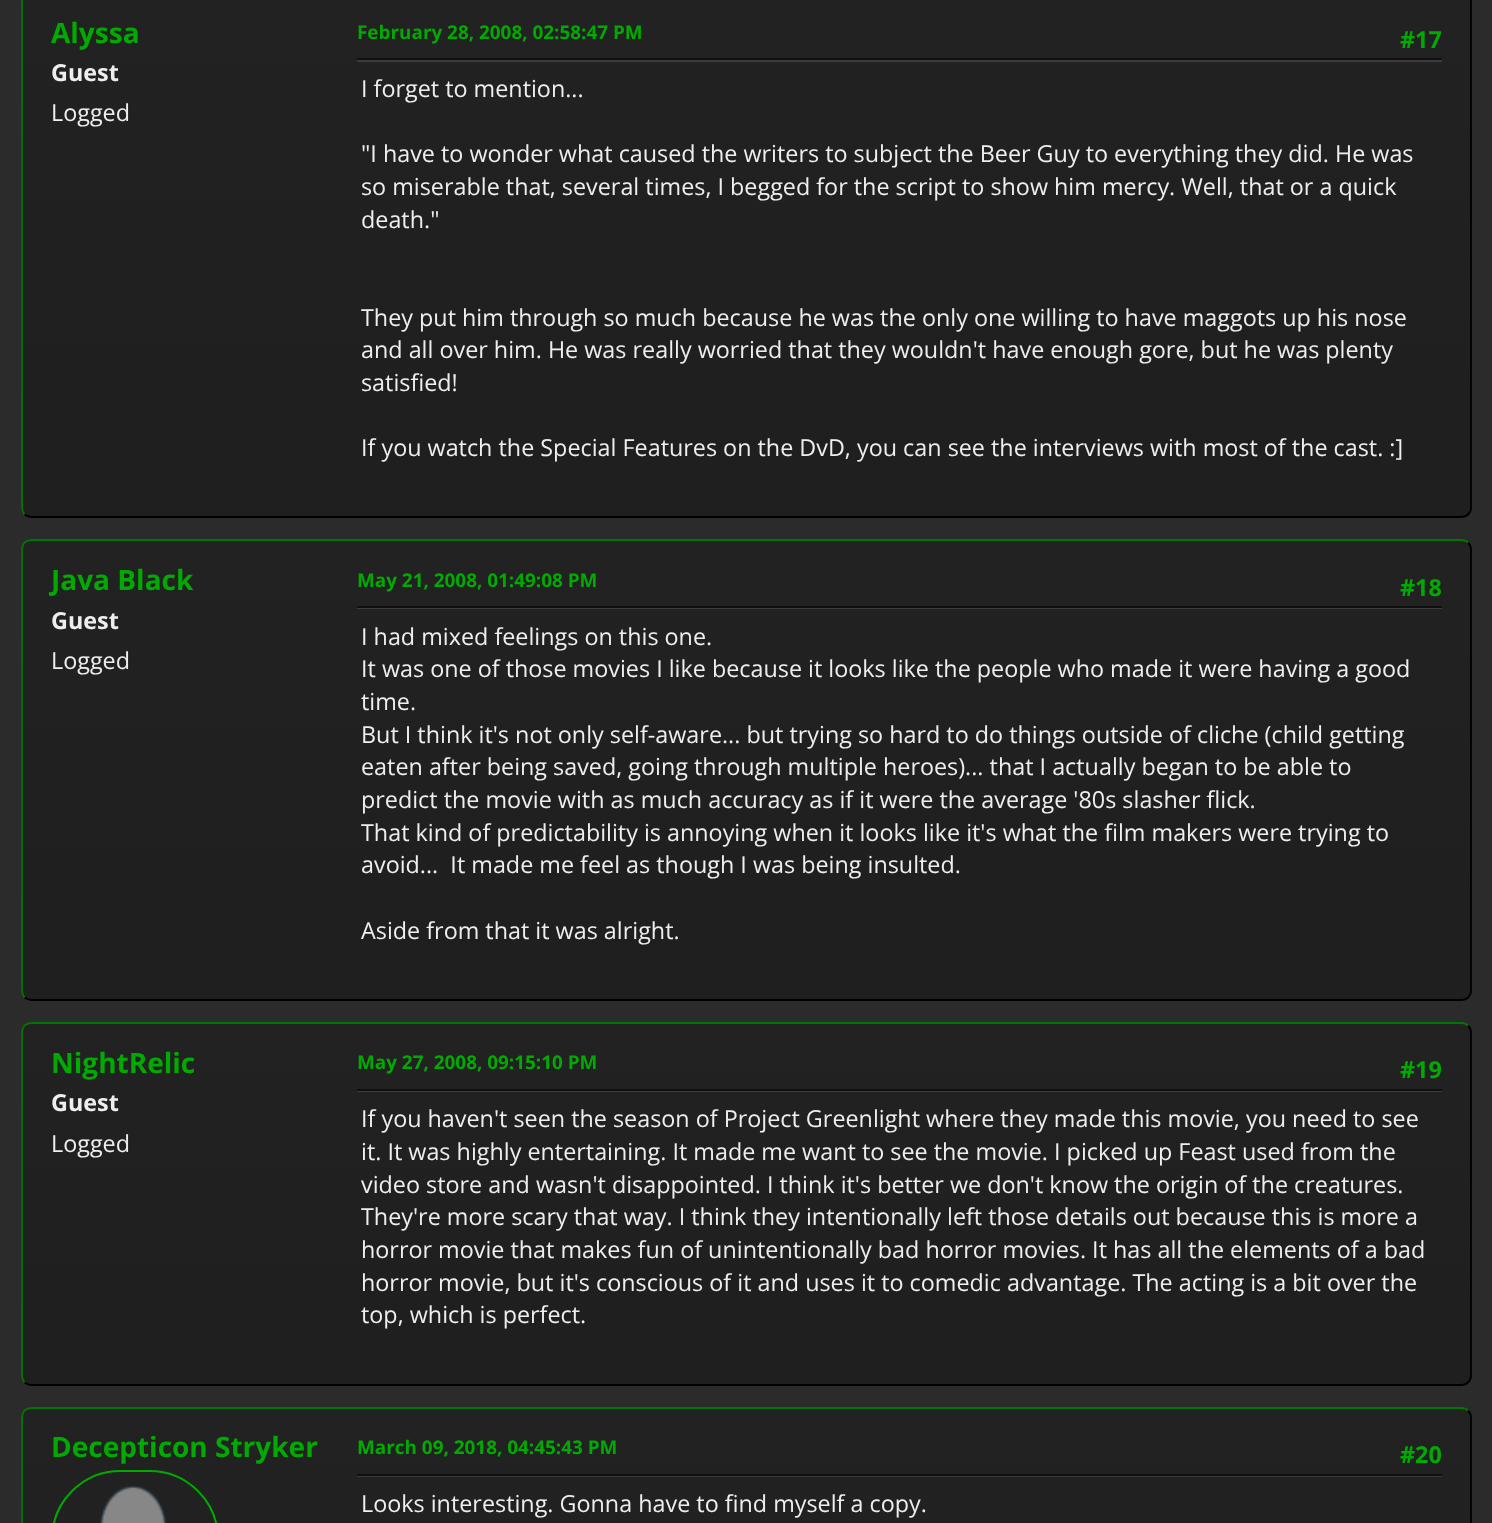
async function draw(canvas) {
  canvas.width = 1492;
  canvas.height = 1523;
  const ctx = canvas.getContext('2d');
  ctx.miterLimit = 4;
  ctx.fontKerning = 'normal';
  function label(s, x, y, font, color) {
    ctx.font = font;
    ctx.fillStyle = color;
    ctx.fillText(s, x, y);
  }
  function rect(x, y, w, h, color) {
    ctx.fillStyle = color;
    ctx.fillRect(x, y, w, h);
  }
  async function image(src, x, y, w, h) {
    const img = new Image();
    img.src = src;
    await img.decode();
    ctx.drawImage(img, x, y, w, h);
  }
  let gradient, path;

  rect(0, 0, 1492, 1523, '#2b2b2b');
  ctx.save();
  ctx.beginPath();
  ctx.roundRect(21, -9, 1451, 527, 11);
  ctx.clip();
  gradient = ctx.createLinearGradient(746, -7, 746, 516);
  gradient.addColorStop(0, '#222');
  gradient.addColorStop(0.8, '#1f1f1f');
  ctx.fillStyle = gradient;
  ctx.fillRect(21, 0, 1451, 516);
  ctx.restore();
  path = new Path2D('M1468-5C1470-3.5 1471-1 1471 1.5V507.5C1471 510 1470 512.5 1468 514.5C1466.5 516 1464 517 1461 517H31.5C29 517 26.5 516 24.5 514.5');
  ctx.strokeStyle = '#000';
  ctx.lineWidth = 1.8;
  ctx.stroke(path);
  path = new Path2D('M24.5 514.5C23 512.5 22 510 22 507.5V2C22-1 23-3.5 24.5-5C26.5-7 29-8 31.5-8H1461C1464-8 1466.5-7 1468-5');
  ctx.strokeStyle = '#007800';
  ctx.stroke(path);
  label('Alyssa', 51, 43, 'bold 28px Open Sans', '#0a0');
  label('Guest', 51, 81, 'bold 23.35px Open Sans', '#eee');
  label('Logged', 51, 121, '23.35px Open Sans', '#eee');
  label('February 28, 2008, 02:58:47 PM', 357, 39, 'bold 18.9px Open Sans', '#0a0');
  label('#17', 1400, 48, 'bold 23.35px Open Sans', '#0a0');
  rect(357, 60, 1085, 2, '#3b3b3b');
  rect(357, 58, 1085, 2, '#101010');
  label('I forget to mention...', 361, 97, '23.35px Open Sans', '#eee');
  label('"I have to wonder what caused the writers to subject the Beer Guy to everything they did. He was', 361, 162, '23.35px Open Sans', '#eee');
  label('so miserable that, several times, I begged for the script to show him mercy. Well, that or a quick', 361, 195, '23.35px Open Sans', '#eee');
  label('death."', 361, 228, '23.35px Open Sans', '#eee');
  label('They put him through so much because he was the only one willing to have maggots up his nose', 361, 326, '23.35px Open Sans', '#eee');
  label('and all over him. He was really worried that they wouldn\'t have enough gore, but he was plenty', 361, 358, '23.35px Open Sans', '#eee');
  label('satisfied!', 361, 391, '23.35px Open Sans', '#eee');
  label('If you watch the Special Features on the DvD, you can see the interviews with most of the cast. :]', 361, 456, '23.35px Open Sans', '#eee');
  ctx.save();
  ctx.beginPath();
  ctx.roundRect(21, 539, 1451, 462, 11);
  ctx.clip();
  gradient = ctx.createLinearGradient(746, 541, 746, 999);
  gradient.addColorStop(0, '#222');
  gradient.addColorStop(0.8, '#1f1f1f');
  ctx.fillStyle = gradient;
  ctx.fillRect(21, 541, 1451, 458);
  ctx.restore();
  path = new Path2D('M1468 542.5C1470 544.5 1471 547 1471 549.5V990.5C1471 993 1470 995.5 1468 997.5C1466.5 999 1464 1000 1461 1000H31.5C29 1000 26.5 999 24.5 997.5');
  ctx.strokeStyle = '#000';
  ctx.stroke(path);
  path = new Path2D('M24.5 997.5C23 995.5 22 993 22 990.5V549.5C22 547 23 544.5 24.5 542.5C26.5 541 29 540 31.5 540H1461C1464 540 1466.5 541 1468 542.5');
  ctx.strokeStyle = '#007800';
  ctx.stroke(path);
  label('Java Black', 51, 590, 'bold 28px Open Sans', '#0a0');
  label('Guest', 51, 629, 'bold 23.35px Open Sans', '#eee');
  label('Logged', 51, 669, '23.35px Open Sans', '#eee');
  label('May 21, 2008, 01:49:08 PM', 357, 587, 'bold 18.9px Open Sans', '#0a0');
  label('#18', 1400, 596, 'bold 23.35px Open Sans', '#0a0');
  rect(357, 608, 1085, 1, '#3b3b3b');
  rect(357, 606, 1085, 2, '#101010');
  label('I had mixed feelings on this one.', 361, 645, '23.35px Open Sans', '#eee');
  label('It was one of those movies I like because it looks like the people who made it were having a good', 361, 677, '23.35px Open Sans', '#eee');
  label('time.', 361, 710, '23.35px Open Sans', '#eee');
  label('But I think it\'s not only self-aware... but trying so hard to do things outside of cliche (child getting', 361, 743, '23.35px Open Sans', '#eee');
  label('eaten after being saved, going through multiple heroes)... that I actually began to be able to', 361, 775, '23.35px Open Sans', '#eee');
  label('predict the movie with as much accuracy as if it were the average \'80s slasher flick.', 361, 808, '23.35px Open Sans', '#eee');
  label('That kind of predictability is annoying when it looks like it\'s what the film makers were trying to', 361, 841, '23.35px Open Sans', '#eee');
  label('avoid...  It made me feel as though I was being insulted.', 361, 873, '23.35px Open Sans', '#eee');
  label('Aside from that it was alright.', 361, 939, '23.35px Open Sans', '#eee');
  ctx.save();
  ctx.beginPath();
  ctx.roundRect(21, 1022, 1451, 364, 11);
  ctx.clip();
  gradient = ctx.createLinearGradient(746, 1024, 746, 1384);
  gradient.addColorStop(0, '#222');
  gradient.addColorStop(0.8, '#1f1f1f');
  ctx.fillStyle = gradient;
  ctx.fillRect(21, 1024, 1451, 360);
  ctx.restore();
  path = new Path2D('M1468 1025.5C1470 1027.5 1471 1030 1471 1032.5V1375.5C1471 1378 1470 1380.5 1468 1382.5C1466.5 1384 1464 1385 1461 1385H31.5C29 1385 26.5 1384 24.5 1382.5');
  ctx.strokeStyle = '#000';
  ctx.stroke(path);
  path = new Path2D('M24.5 1382.5C23 1380.5 22 1378 22 1375.5V1032.5C22 1030 23 1027.5 24.5 1025.5C26.5 1024 29 1023 31.5 1023H1461C1464 1023 1466.5 1024 1468 1025.5');
  ctx.strokeStyle = '#007800';
  ctx.stroke(path);
  label('NightRelic', 51, 1073, 'bold 28px Open Sans', '#0a0');
  label('Guest', 51, 1111, 'bold 23.35px Open Sans', '#eee');
  label('Logged', 51, 1152, '23.35px Open Sans', '#eee');
  label('May 27, 2008, 09:15:10 PM', 357, 1069, 'bold 18.9px Open Sans', '#0a0');
  label('#19', 1400, 1078, 'bold 23.35px Open Sans', '#0a0');
  rect(357, 1091, 1085, 1, '#3b3b3b');
  rect(357, 1089, 1085, 2, '#101010');
  label('If you haven\'t seen the season of Project Greenlight where they made this movie, you need to see', 361, 1127, '23.35px Open Sans', '#eee');
  label('it. It was highly entertaining. It made me want to see the movie. I picked up Feast used from the', 361, 1160, '23.35px Open Sans', '#eee');
  label('video store and wasn\'t disappointed. I think it\'s better we don\'t know the origin of the creatures.', 361, 1193, '23.35px Open Sans', '#eee');
  label('They\'re more scary that way. I think they intentionally left those details out because this is more a', 361, 1225, '23.35px Open Sans', '#eee');
  label('horror movie that makes fun of unintentionally bad horror movies. It has all the elements of a bad', 361, 1258, '23.35px Open Sans', '#eee');
  label('horror movie, but it\'s conscious of it and uses it to comedic advantage. The acting is a bit over the', 361, 1291, '23.35px Open Sans', '#eee');
  label('top, which is perfect.', 361, 1323, '23.35px Open Sans', '#eee');
  ctx.save();
  ctx.beginPath();
  ctx.roundRect(21, 1407, 1451, 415, 11);
  ctx.clip();
  gradient = ctx.createLinearGradient(746, 1409, 746, 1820);
  gradient.addColorStop(0, '#222');
  gradient.addColorStop(0.8, '#1f1f1f');
  ctx.fillStyle = gradient;
  ctx.fillRect(21, 1409, 1451, 114);
  ctx.restore();
  path = new Path2D('M1468 1410.5C1470 1412.5 1471 1415 1471 1417.5V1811C1471 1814 1470 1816.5 1468 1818C1466.5 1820 1464 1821 1461 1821H31.5C29 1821 26.5 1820 24.5 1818');
  ctx.strokeStyle = '#000';
  ctx.stroke(path);
  path = new Path2D('M24.5 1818C23 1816.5 22 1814 22 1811V1417.5C22 1415 23 1412.5 24.5 1410.5C26.5 1409 29 1408 31.5 1408H1461C1464 1408 1466.5 1409 1468 1410.5');
  ctx.strokeStyle = '#007800';
  ctx.stroke(path);
  label('Decepticon Stryker', 51, 1457, 'bold 28px Open Sans', '#0a0');
  ctx.beginPath();
  ctx.roundRect(52, 1471, 166, 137, 83);
  ctx.strokeStyle = '#0a0';
  ctx.lineWidth = 2;
  ctx.stroke();
  await image('assets/img1.png', 100, 1486, 67, 37);
  label('March 09, 2018, 04:45:43 PM', 357, 1454, 'bold 18.9px Open Sans', '#0a0');
  label('#20', 1400, 1463, 'bold 23.35px Open Sans', '#0a0');
  rect(357, 1476, 1085, 1, '#3b3b3b');
  rect(357, 1474, 1085, 2, '#101010');
  label('Looks interesting. Gonna have to find myself a copy.', 361, 1512, '23.35px Open Sans', '#eee');
}

draw(document.querySelector('canvas'));
